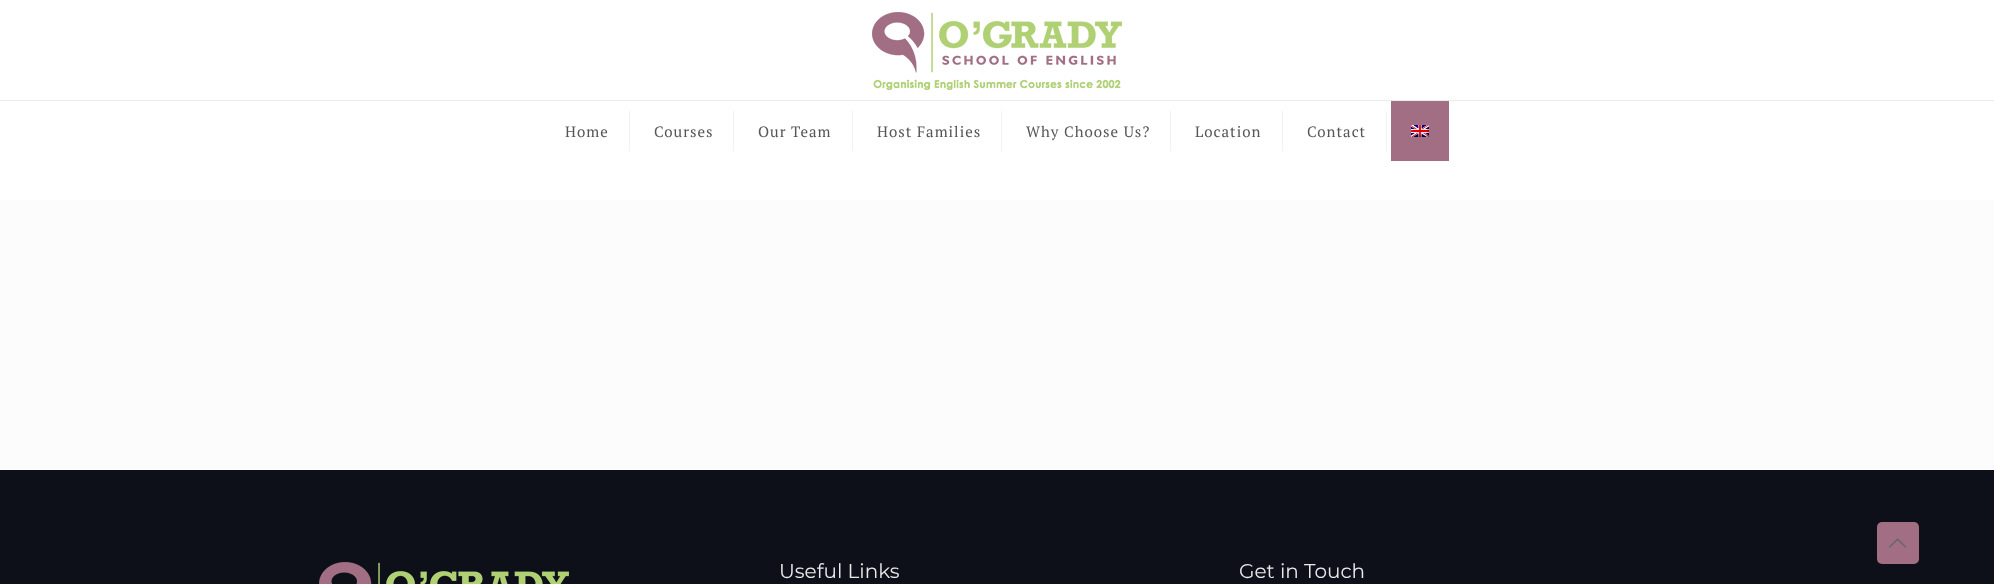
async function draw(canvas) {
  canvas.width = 1994;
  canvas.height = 584;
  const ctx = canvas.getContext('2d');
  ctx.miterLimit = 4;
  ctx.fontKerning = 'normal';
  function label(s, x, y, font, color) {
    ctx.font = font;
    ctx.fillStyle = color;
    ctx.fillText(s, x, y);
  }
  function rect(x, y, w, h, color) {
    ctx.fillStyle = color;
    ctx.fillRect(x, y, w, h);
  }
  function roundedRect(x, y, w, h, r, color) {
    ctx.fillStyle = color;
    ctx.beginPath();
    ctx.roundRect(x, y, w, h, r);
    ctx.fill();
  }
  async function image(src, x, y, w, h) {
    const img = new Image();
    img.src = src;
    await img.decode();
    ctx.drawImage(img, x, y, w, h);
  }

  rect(0, 0, 1994, 584, '#fcfcfc');
  rect(0, 0, 1994, 200, '#fff');
  rect(0, 100, 1994, 1, '#ebebeb');
  await image('assets/img1.png', 872, 12, 250, 78);
  rect(629, 111, 1, 40, '#f2f2f2');
  ctx.letterSpacing = '1px';
  label('Home', 565, 137, '15px PT Serif', '#565656');
  rect(733, 111, 1, 40, '#f2f2f2');
  label('Courses', 654, 137, '15px PT Serif', '#565656');
  rect(852, 111, 1, 40, '#f2f2f2');
  label('Our Team', 758, 137, '15px PT Serif', '#565656');
  rect(1001, 111, 1, 40, '#f2f2f2');
  label('Host Families', 877, 137, '15px PT Serif', '#565656');
  rect(1170, 111, 1, 40, '#f2f2f2');
  label('Why Choose Us?', 1026, 137, '15px PT Serif', '#565656');
  rect(1282, 111, 1, 40, '#f2f2f2');
  label('Location', 1195, 137, '15px PT Serif', '#565656');
  rect(1386, 111, 1, 40, '#f2f2f2');
  label('Contact', 1307, 137, '15px PT Serif', '#565656');
  rect(1391, 101, 58, 60, '#a16e83');
  await image('assets/img2.png', 1411, 125, 18, 12);
  rect(0, 470, 1994, 114, '#0d0f19');
  await image('assets/img3.png', 319, 562, 250, 22);
  ctx.letterSpacing = '0px';
  label('Useful Links', 779, 578, '20px Montserrat', '#e9e9e9');
  label('Get in Touch', 1239, 578, '20px Montserrat', '#e9e9e9');
  roundedRect(1877, 522, 42, 42, 5, '#a16e83');
  await image('assets/img4.png', 1889, 538, 18, 10);
}

draw(document.querySelector('canvas'));
